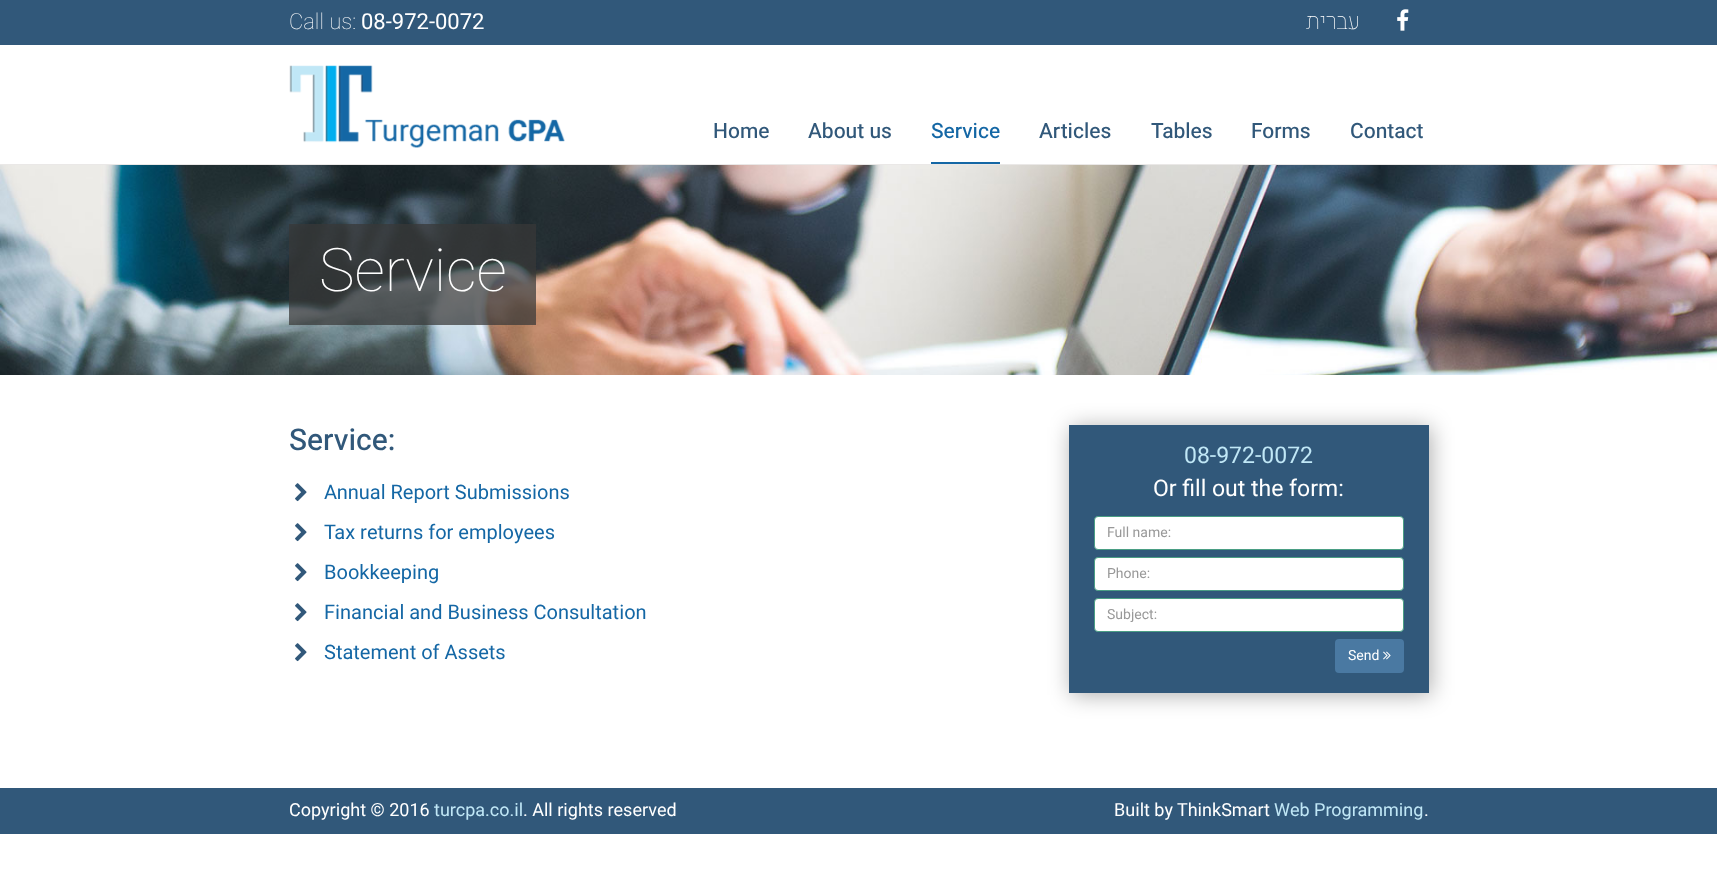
async function draw(canvas) {
  canvas.width = 1717;
  canvas.height = 896;
  const ctx = canvas.getContext('2d');
  ctx.miterLimit = 4;
  ctx.fontKerning = 'normal';
  function label(s, x, y, font, color) {
    ctx.font = font;
    ctx.fillStyle = color;
    ctx.fillText(s, x, y);
  }
  function rect(x, y, w, h, color) {
    ctx.fillStyle = color;
    ctx.fillRect(x, y, w, h);
  }
  function roundedRect(x, y, w, h, r, color) {
    ctx.fillStyle = color;
    ctx.beginPath();
    ctx.roundRect(x, y, w, h, r);
    ctx.fill();
  }
  async function image(src, x, y, w, h) {
    const img = new Image();
    img.src = src;
    await img.decode();
    ctx.drawImage(img, x, y, w, h);
  }

  rect(0, 0, 1717, 896, '#fff');
  rect(0, 0, 1717, 45, '#31587a');
  label('Call us:', 289, 29, '100 22px Heebo', '#fff');
  label('08-972-0072', 361, 29, '22px Heebo', '#fff');
  ctx.direction = 'rtl';
  label('רית', 1337, 29, '100 23px Heebo', '#fff');
  label('עב', 1360, 29, '100 23px Heebo', '#fff');
  await image('assets/img1.png', 1397, 9, 12, 22);
  rect(0, 164, 1717, 1, '#eae8e7');
  await image('assets/img2.png', 289, 65, 276, 83);
  ctx.direction = 'ltr';
  label('Home', 713, 138, '500 21px Heebo', '#31587a');
  label('About us', 808, 138, '500 21px Heebo', '#31587a');
  label('Service', 931, 138, '500 21px Heebo', '#1467a5');
  rect(931, 162, 69, 2, '#1467a5');
  label('Articles', 1039, 138, '500 21px Heebo', '#31587a');
  label('Tables', 1151, 138, '500 21px Heebo', '#31587a');
  label('Forms', 1251, 138, '500 21px Heebo', '#31587a');
  label('Contact', 1350, 138, '500 21px Heebo', '#31587a');
  await image('assets/img3.png', 0, 165, 1717, 210);
  rect(289, 224, 247, 101, '#383838ba');
  label('Service', 319, 291, '100 60px Heebo', '#fff');
  label('Service:', 289, 450, '500 30px Heebo', '#31587a');
  await image('assets/img4.png', 295, 483, 12, 19);
  label('Annual Report Submissions', 324, 499, '20px Heebo', '#1467a5');
  await image('assets/img4.png', 295, 523, 12, 19);
  label('Tax returns for employees', 324, 539, '20px Heebo', '#1467a5');
  await image('assets/img4.png', 295, 563, 12, 19);
  label('Bookkeeping', 324, 579, '20px Heebo', '#1467a5');
  await image('assets/img4.png', 295, 603, 12, 19);
  label('Financial and Business Consultation', 324, 619, '20px Heebo', '#1467a5');
  await image('assets/img4.png', 295, 643, 12, 19);
  label('Statement of Assets', 324, 659, '20px Heebo', '#1467a5');
  ctx.fillStyle = '#00000052';
  ctx.filter = 'blur(11px)';
  ctx.beginPath();
  ctx.rect(1071, 427, 360, 268);
  ctx.fill();
  ctx.filter = 'none';
  rect(1069, 425, 360, 268, '#31587a');
  label('08-972-0072', 1184, 463, '23px Heebo', '#c0e7f6');
  label('Or fill out the form:', 1153, 496, '23px Heebo', '#fff');
  ctx.beginPath();
  ctx.roundRect(1094.5, 516.5, 309, 33, 3.5);
  ctx.fill();
  ctx.strokeStyle = '#4a9e84';
  ctx.stroke();
  label('Full name:', 1107, 537, '14px Heebo', '#999');
  ctx.fillStyle = '#fff';
  ctx.beginPath();
  ctx.roundRect(1094.5, 557.5, 309, 33, 3.5);
  ctx.fill();
  ctx.stroke();
  label('Phone:', 1107, 578, '14px Heebo', '#999');
  ctx.fillStyle = '#fff';
  ctx.beginPath();
  ctx.roundRect(1094.5, 598.5, 309, 33, 3.5);
  ctx.fill();
  ctx.stroke();
  label('Subject:', 1107, 619, '14px Heebo', '#999');
  roundedRect(1335, 639, 69, 34, 4, '#4a79a2');
  label('Send', 1348, 660, '14px Heebo', '#fff');
  await image('assets/img5.png', 1383, 651, 8, 9);
  rect(0, 788, 1717, 46, '#31587a');
  label('Copyright © 2016', 289, 816, '18px Heebo', '#fff');
  label('turcpa.co.il', 434, 816, '18px Heebo', '#c0e7f6');
  label('. All rights reserved', 523, 816, '18px Heebo', '#fff');
  label('Built by ThinkSmart', 1114, 816, '18px Heebo', '#fff');
  label('Web Programming', 1274, 816, '18px Heebo', '#c0e7f6');
  label('.', 1424, 816, '18px Heebo', '#fff');
}

draw(document.querySelector('canvas'));
